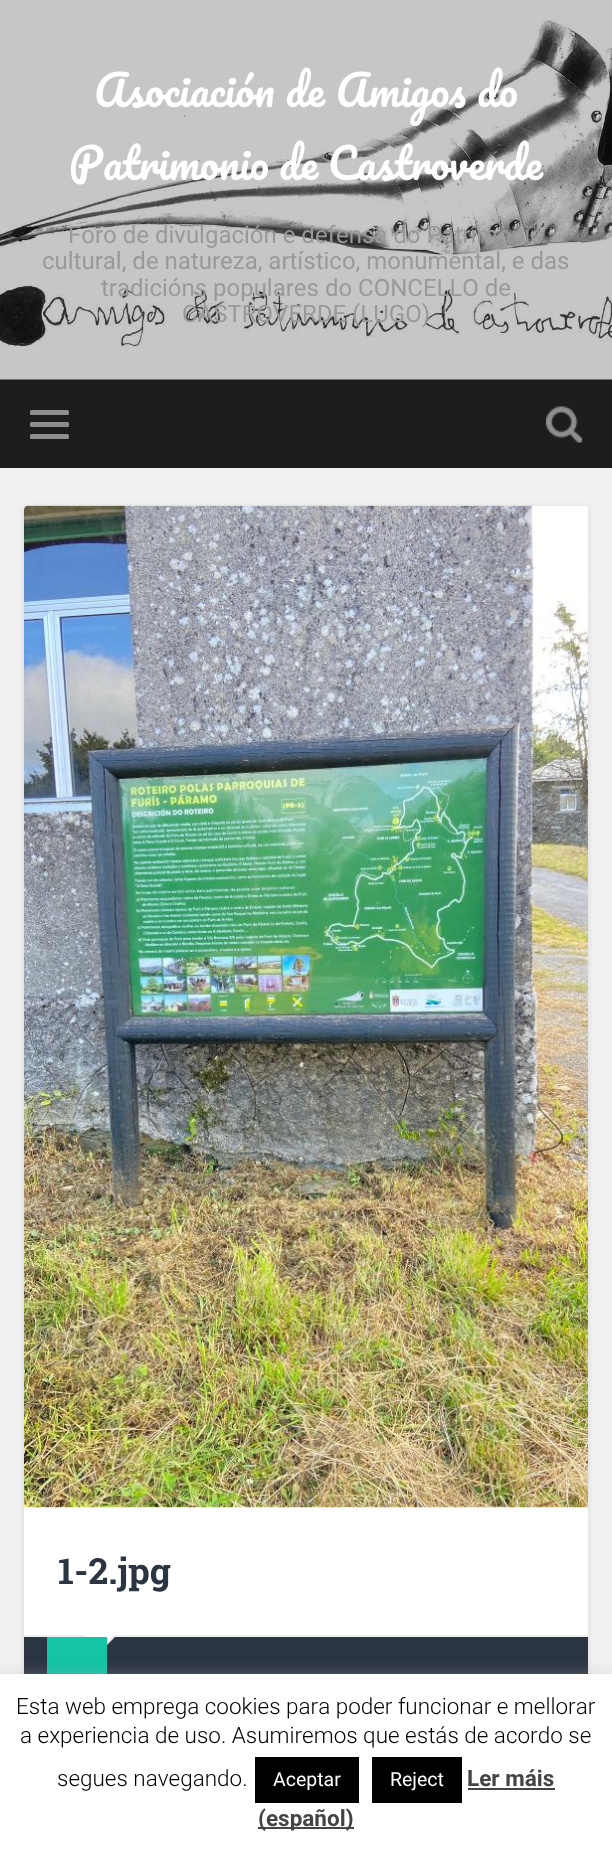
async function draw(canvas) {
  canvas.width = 612;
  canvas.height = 1849;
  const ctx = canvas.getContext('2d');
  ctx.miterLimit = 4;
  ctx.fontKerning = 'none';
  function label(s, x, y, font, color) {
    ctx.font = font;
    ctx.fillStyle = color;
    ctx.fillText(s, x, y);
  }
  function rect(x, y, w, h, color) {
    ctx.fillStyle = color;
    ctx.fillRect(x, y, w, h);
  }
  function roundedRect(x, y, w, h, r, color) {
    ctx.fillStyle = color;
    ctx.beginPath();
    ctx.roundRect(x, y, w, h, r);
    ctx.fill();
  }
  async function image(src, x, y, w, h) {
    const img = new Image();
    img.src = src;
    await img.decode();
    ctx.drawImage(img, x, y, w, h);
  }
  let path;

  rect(0, 0, 612, 1849, '#f1f1f1');
  rect(0, 379, 612, 89, '#1d1d1d');
  await image('assets/img1.png', 0, 0, 612, 380);
  label('Asociación de Amigos do', 94, 107, '42px Pacifico', '#fff');
  ctx.wordSpacing = '-1px';
  label('Patrimonio de Castroverde', 69, 180, '42px Pacifico', '#fff');
  ctx.wordSpacing = '0px';
  label('Foro de divulgación e defensa do Patrimonio', 68, 243, '24px Roboto', '#999');
  label('cultural, de natureza, artístico, monumental, e das', 42, 269, '24px Roboto', '#999');
  label('tradicións populares do CONCELLO de', 101, 296, '24px Roboto', '#999');
  label('CASTROVERDE (LUGO)', 182, 322, '24px Roboto', '#999');
  roundedRect(30, 410, 39, 5, 1.5, '#8e8e8e');
  roundedRect(30, 422, 39, 5, 1.5, '#8e8e8e');
  roundedRect(30, 434, 39, 5, 1.5, '#8e8e8e');
  await image('assets/img2.png', 546, 406, 36, 37);
  ctx.fillStyle = '#0000001a';
  ctx.filter = 'blur(3px)';
  ctx.beginPath();
  ctx.roundRect(24, 507, 564, 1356, 5);
  ctx.fill();
  ctx.filter = 'none';
  roundedRect(24, 506, 564, 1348, 5, '#fff');
  await image('assets/img3.png', 24, 505, 564, 1003);
  rect(24, 1635, 564, 2, '#eee');
  label('1-2.jpg', 58, 1584, 'bold 36px Roboto Slab', '#2b3542');
  rect(24, 1637, 564, 37, '#2b3542');
  ctx.fillStyle = '#eee';
  path = new Path2D('M81 1635H117L99 1653Z');
  ctx.fill(path);
  ctx.fillStyle = '#fff';
  path = new Path2D('M82.5 1633.5H115.5L99 1650Z');
  ctx.fill(path);
  rect(47, 1637, 60, 37, '#13c4a5');
  ctx.fillStyle = '#acabab4d';
  ctx.filter = 'blur(7.5px)';
  ctx.beginPath();
  ctx.rect(0, 1673, 612, 175);
  ctx.fill();
  ctx.filter = 'none';
  rect(0, 1674, 612, 175, '#fff');
  label('Esta web emprega cookies para poder funcionar e mellorar', 16, 1714, '300 22.5px Roboto', '#000');
  label('a experiencia de uso. Asumiremos que estás de acordo se', 20, 1743, '300 22.5px Roboto', '#000');
  label('segues navegando.', 57, 1786, '300 22.5px Roboto', '#000');
  rect(255, 1757, 104, 46, '#000');
  label('Aceptar', 273, 1786, '19.5px Roboto', '#fff');
  rect(372, 1757, 90, 46, '#000');
  label('Reject', 390, 1786, '19.5px Roboto', '#fff');
  label('Ler máis', 467, 1786, 'bold 22.5px Roboto', '#444');
  rect(468, 1788, 87, 2, '#444');
  rect(258, 1827, 96, 2, '#444');
  label('(español)', 258, 1826, 'bold 22.5px Roboto', '#444');
}

draw(document.querySelector('canvas'));
